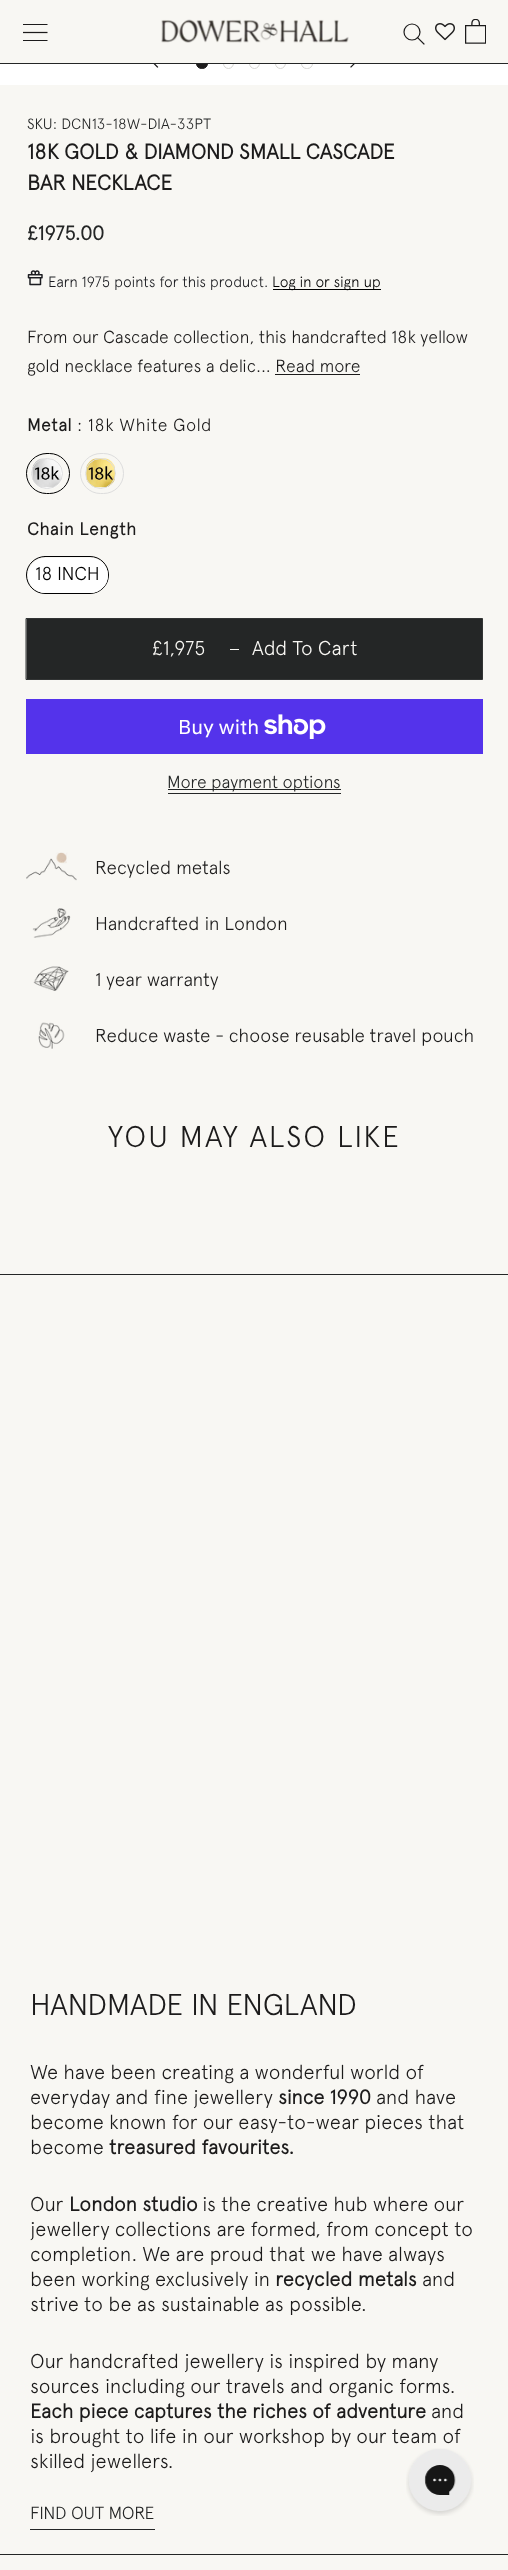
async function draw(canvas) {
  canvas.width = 508;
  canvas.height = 2570;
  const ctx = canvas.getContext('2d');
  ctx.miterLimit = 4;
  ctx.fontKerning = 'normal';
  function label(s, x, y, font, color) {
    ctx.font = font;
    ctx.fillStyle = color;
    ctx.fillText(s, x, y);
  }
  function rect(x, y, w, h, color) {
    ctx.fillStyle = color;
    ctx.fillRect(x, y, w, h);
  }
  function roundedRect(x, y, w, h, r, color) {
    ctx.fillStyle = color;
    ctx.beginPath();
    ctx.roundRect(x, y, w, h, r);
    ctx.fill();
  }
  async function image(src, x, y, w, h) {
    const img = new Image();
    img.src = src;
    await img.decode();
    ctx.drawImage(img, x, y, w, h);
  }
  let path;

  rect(0, 0, 508, 2570, '#f8f7f3');
  rect(0, 64, 508, 21, '#fff');
  path = new Path2D('M157.5 67L152.5 62L157.5 57');
  ctx.strokeStyle = '#1c1b1b';
  ctx.lineWidth = 1.2;
  ctx.lineCap = 'square';
  ctx.stroke(path);
  ctx.fillStyle = '#1c1b1b';
  ctx.beginPath();
  ctx.roundRect(196.5, 58.5, 11, 10, 5);
  ctx.fill();
  ctx.lineWidth = 1;
  ctx.stroke();
  ctx.beginPath();
  ctx.arc(228.5, 63.5, 5, 0, 2 * Math.PI);
  ctx.strokeStyle = '#d7d6d3';
  ctx.stroke();
  ctx.beginPath();
  ctx.arc(254.5, 63.5, 5, 0, 2 * Math.PI);
  ctx.stroke();
  ctx.beginPath();
  ctx.arc(280.5, 63.5, 5, 0, 2 * Math.PI);
  ctx.stroke();
  ctx.beginPath();
  ctx.roundRect(301.5, 58.5, 11, 10, 5);
  ctx.stroke();
  path = new Path2D('M351 67L356 62L351 57');
  ctx.strokeStyle = '#1c1b1b';
  ctx.lineWidth = 1.2;
  ctx.stroke(path);
  rect(151, 56, 206, 7, '#f8f7f3');
  rect(0, 63, 508, 1, '#242626');
  await image('assets/img1.png', 23, 24, 25, 17);
  await image('assets/img2.png', 161, 19, 188, 24);
  path = new Path2D('M424 44L417.5 37.5');
  ctx.stroke(path);
  ctx.beginPath();
  ctx.arc(412, 32, 8, 0, 2 * Math.PI);
  ctx.stroke();
  await image('assets/img3.png', 435, 23, 20, 18);
  await image('assets/img4.png', 465, 19, 21, 25);
  ctx.letterSpacing = '0.1px';
  label('SKU: DCN13-18W-DIA-33PT', 27, 129, '300 15px "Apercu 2"', '#242626');
  ctx.letterSpacing = '0px';
  label('18K GOLD & DIAMOND SMALL CASCADE', 27, 159, 'bold 21.25px "Apercu 2"', '#1c1b1b');
  label('BAR NECKLACE', 27, 190, 'bold 21.25px "Apercu 2"', '#1c1b1b');
  label('£1975.00', 27, 240, 'bold 20px "Apercu 2"', '#242626');
  await image('assets/img5.png', 27, 270, 16, 16);
  label('Earn 1975 points for this product.', 48, 287, '300 15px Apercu', '#1c1d21');
  rect(273, 289, 108, 1, '#000');
  label('Log in or sign up', 272, 287, '300 15px Apercu', '#000');
  label('From our Cascade collection, this handcrafted 18k yellow', 27, 343, '300 17.5px Apercu', '#1c1b1b');
  label('gold necklace features a delic... Read more', 27, 372, '300 17.5px Apercu', '#1c1b1b');
  rect(275, 374, 85, 1, '#1c1b1b');
  ctx.letterSpacing = '0.6px';
  label('Metal', 27, 431, 'bold 17.5px "Apercu 2"', '#1c1b1b');
  label(': 18k White Gold', 77, 431, '300 17.5px Apercu', '#1c1b1b');
  ctx.beginPath();
  ctx.roundRect(26.5, 453.5, 43, 40, 20);
  ctx.strokeStyle = '#000';
  ctx.lineWidth = 1;
  ctx.stroke();
  roundedRect(31, 458, 32, 31, 15.5, '#fff');
  await image('assets/img6.png', 32, 458, 30, 30);
  ctx.beginPath();
  ctx.roundRect(31.5, 458.5, 31, 30, 15);
  ctx.strokeStyle = '#ddd';
  ctx.stroke();
  ctx.beginPath();
  ctx.roundRect(80.5, 453.5, 43, 40, 20);
  ctx.stroke();
  ctx.beginPath();
  ctx.arc(100.5, 473.5, 15.5, 0, 2 * Math.PI);
  ctx.fill();
  await image('assets/img7.png', 86, 458, 29, 30);
  ctx.beginPath();
  ctx.arc(100.5, 473.5, 15, 0, 2 * Math.PI);
  ctx.stroke();
  label('Chain Length', 27, 535, 'bold 17.5px "Apercu 2"', '#1c1b1b');
  ctx.beginPath();
  ctx.roundRect(26.5, 556.5, 82, 37, 18.5);
  ctx.strokeStyle = '#000';
  ctx.stroke();
  roundedRect(28, 558, 80, 35, 17.5, '#fff');
  ctx.letterSpacing = '0px';
  label('18 INCH', 35, 580, '300 18.75px Apercu', '#000');
  ctx.fillStyle = '#242626';
  ctx.beginPath();
  ctx.rect(26.5, 618.5, 456, 61);
  ctx.fill();
  ctx.strokeStyle = '#323434';
  ctx.stroke();
  ctx.letterSpacing = '0.1px';
  label('£1,975', 152, 655, '300 20px Apercu', '#f8f7f3');
  rect(230, 649, 9, 1, '#f8f7f3');
  label('Add To Cart', 252, 655, '300 20px Apercu', '#f8f7f3');
  rect(26, 699, 457, 55, '#5433eb');
  ctx.letterSpacing = '0px';
  label('Buy with', 178, 734, '20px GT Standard', '#fff');
  await image('assets/img8.png', 264, 714, 62, 25);
  rect(168, 789, 173, 1, '#242626');
  label('More payment options', 167, 788, '300 17.5px Apercu', '#242626');
  rect(168, 793, 173, 1, '#242626');
  await image('assets/img9.png', 26, 852, 51, 29);
  label('Recycled metals', 95, 874, '300 18.75px Apercu', '#1c1b1b');
  await image('assets/img10.png', 32, 908, 39, 30);
  label('Handcrafted in London', 95, 930, '300 18.75px Apercu', '#1c1b1b');
  await image('assets/img11.png', 33, 966, 36, 25);
  label('1 year warranty', 95, 986, '300 18.75px Apercu', '#1c1b1b');
  await image('assets/img12.png', 38, 1022, 27, 27);
  label('Reduce waste - choose reusable travel pouch', 95, 1042, '300 18.75px Apercu', '#1c1b1b');
  ctx.letterSpacing = '2.1px';
  label('YOU MAY ALSO LIKE', 108, 1147, '300 30px Apercu', '#1c1b1b');
  rect(0, 1274, 508, 1, '#242626');
  ctx.letterSpacing = '0px';
  label('HANDMADE IN ENGLAND', 30, 2015, '300 30px Apercu', '#1c1b1b');
  ctx.letterSpacing = '0.1px';
  label('We have been creating a wonderful world of', 30, 2079, '300 20px "Apercu 2"', '#1c1b1b');
  label('everyday and fine jewellery', 30, 2104, '300 20px "Apercu 2"', '#1c1b1b');
  label('since 1990', 278, 2104, 'bold 20px Apercu', '#1c1b1b');
  label('and have', 376, 2104, '300 20px "Apercu 2"', '#1c1b1b');
  label('become known for our easy-to-wear pieces that', 30, 2129, '300 20px "Apercu 2"', '#1c1b1b');
  label('become', 30, 2154, '300 20px "Apercu 2"', '#1c1b1b');
  label('treasured favourites.', 109, 2154, 'bold 20px Apercu', '#1c1b1b');
  label('Our', 30, 2211, '300 20px "Apercu 2"', '#1c1b1b');
  label('London studio', 69, 2211, 'bold 20px Apercu', '#1c1b1b');
  label('is the creative hub where our', 202, 2211, '300 20px "Apercu 2"', '#1c1b1b');
  label('jewellery collections are formed, from concept to', 30, 2236, '300 20px "Apercu 2"', '#1c1b1b');
  label('completion. We are proud that we have always', 30, 2261, '300 20px "Apercu 2"', '#1c1b1b');
  label('been working exclusively in', 30, 2286, '300 20px "Apercu 2"', '#1c1b1b');
  label('recycled metals', 275, 2286, 'bold 20px Apercu', '#1c1b1b');
  label('and', 422, 2286, '300 20px "Apercu 2"', '#1c1b1b');
  label('strive to be as sustainable as possible.', 30, 2311, '300 20px "Apercu 2"', '#1c1b1b');
  label('Our handcrafted jewellery is inspired by many', 30, 2368, '300 20px "Apercu 2"', '#1c1b1b');
  label('sources including our travels and organic forms.', 30, 2393, '300 20px "Apercu 2"', '#1c1b1b');
  label('Each piece captures the riches of adventure', 30, 2418, 'bold 20px Apercu', '#1c1b1b');
  label('and', 431, 2418, '300 20px "Apercu 2"', '#1c1b1b');
  label('is brought to life in our workshop by our team of', 30, 2443, '300 20px "Apercu 2"', '#1c1b1b');
  label('skilled jewellers.', 30, 2468, '300 20px "Apercu 2"', '#1c1b1b');
  ctx.letterSpacing = '0px';
  label('FIND OUT MORE', 30, 2519, '300 17.5px Apercu', '#242626');
  rect(30, 2529, 125, 1, '#242626');
  rect(0, 2554, 508, 1, '#242626');
  await image('assets/img13.png', 406, 2448, 68, 68);
}

draw(document.querySelector('canvas'));
